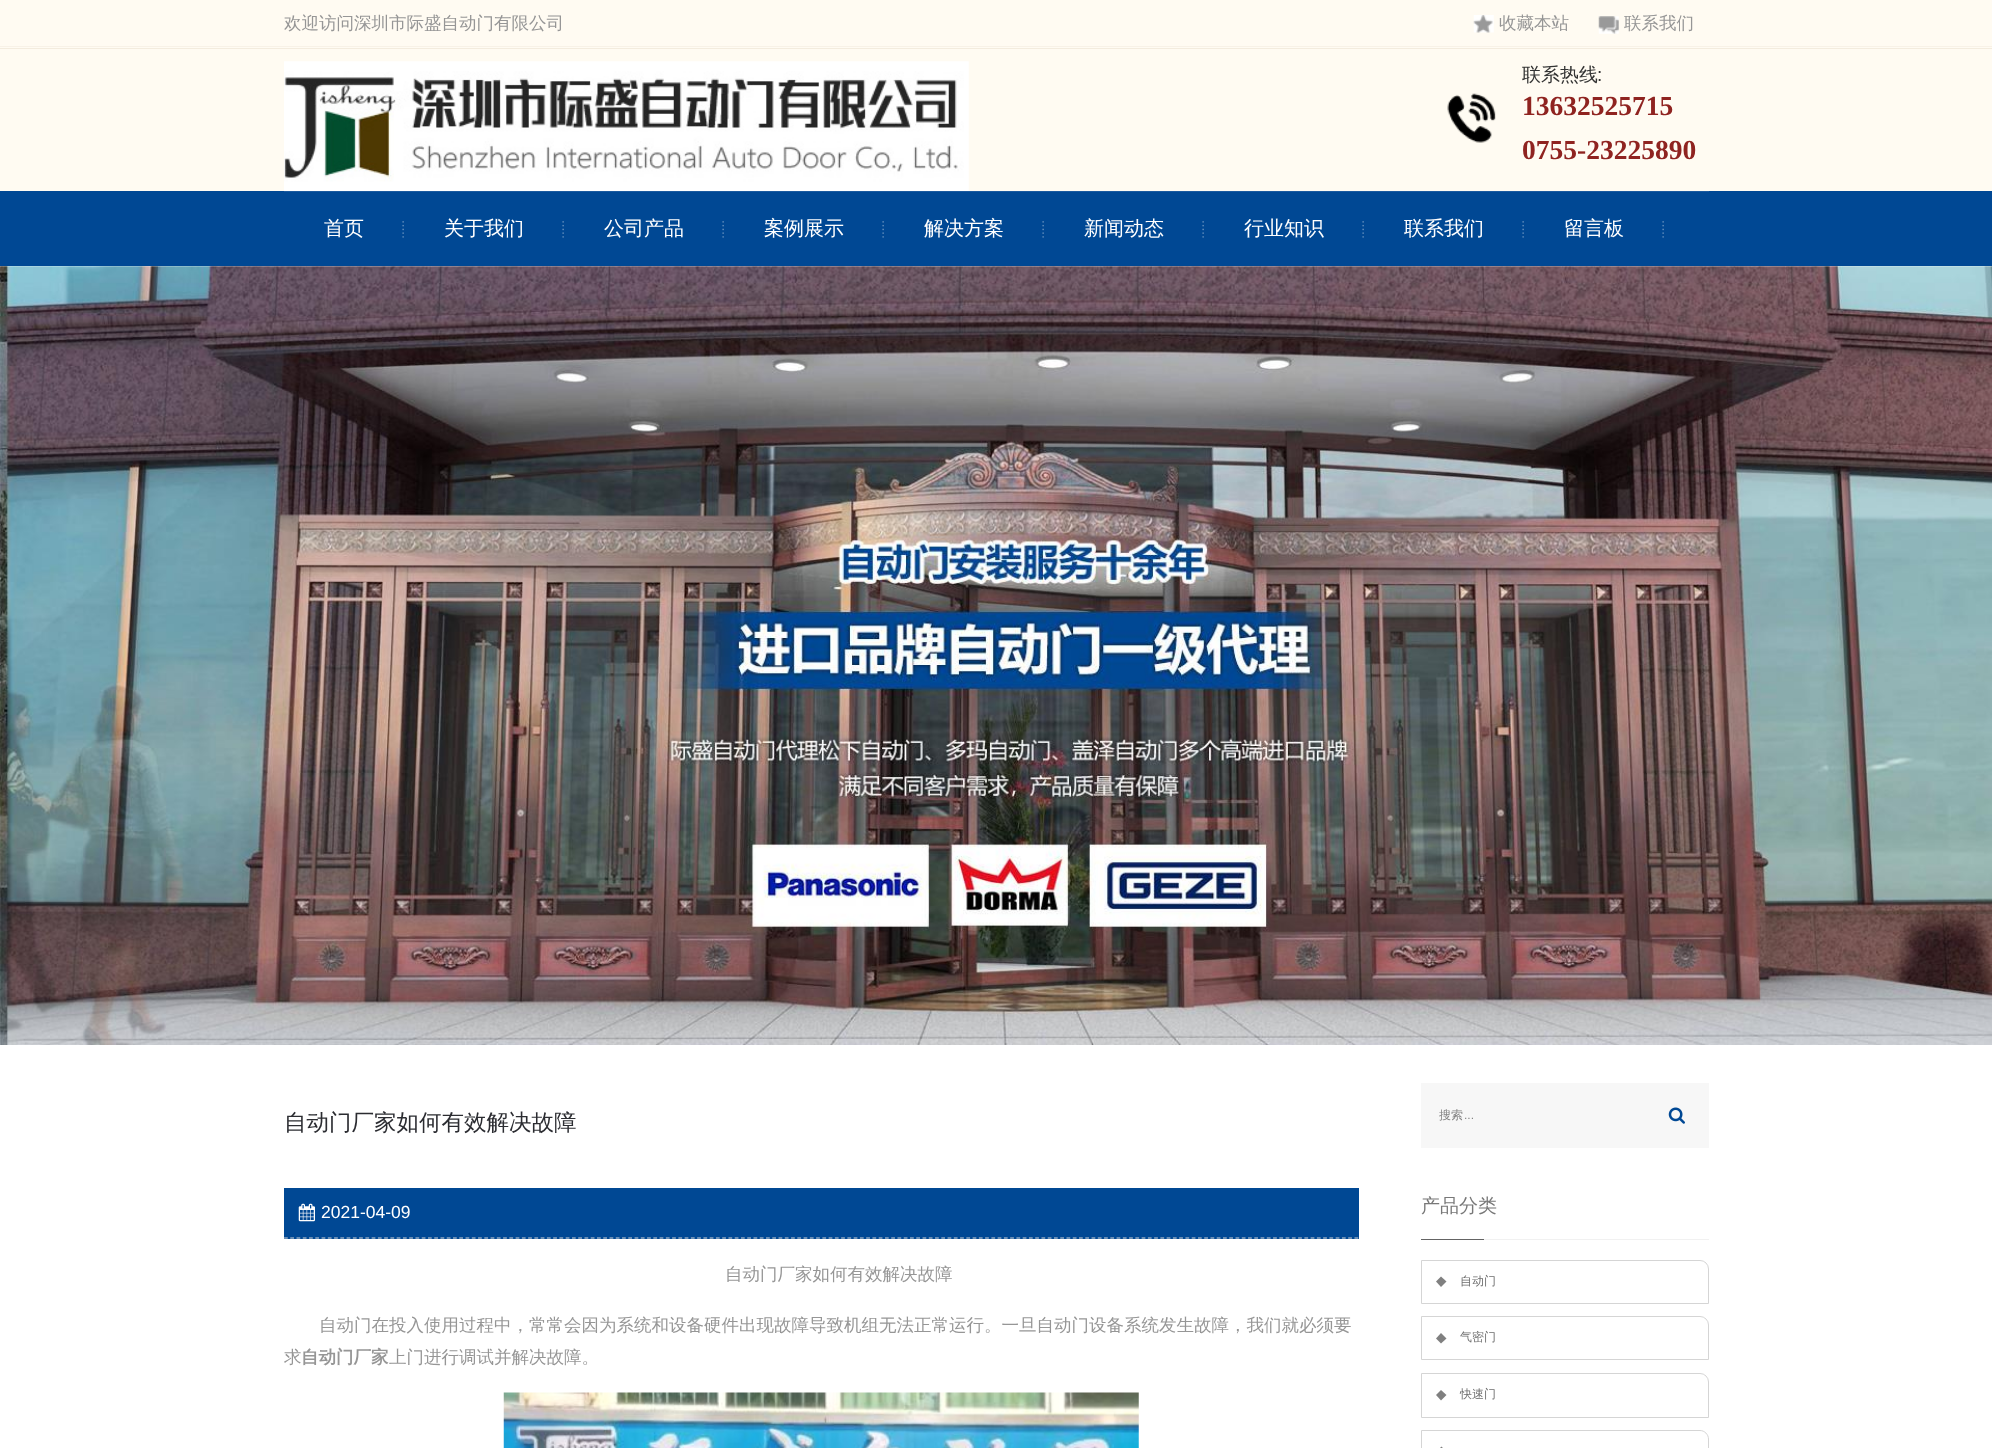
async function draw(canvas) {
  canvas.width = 1992;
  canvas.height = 1448;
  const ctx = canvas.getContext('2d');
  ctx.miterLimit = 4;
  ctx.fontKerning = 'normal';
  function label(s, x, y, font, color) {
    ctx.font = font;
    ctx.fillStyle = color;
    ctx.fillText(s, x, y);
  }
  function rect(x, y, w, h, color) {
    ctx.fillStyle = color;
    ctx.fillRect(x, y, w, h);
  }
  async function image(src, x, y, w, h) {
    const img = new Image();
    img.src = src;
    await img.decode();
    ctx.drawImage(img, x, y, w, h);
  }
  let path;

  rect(0, 0, 1992, 1448, '#fff');
  rect(0, 0, 1992, 48, '#fffbf2');
  rect(0, 46, 1992, 1, '#f8f2e7');
  label('欢迎访问深圳市际盛自动门有限公司', 284, 29, '500 17.5px WenQuanYi Zen Hei', '#969696');
  await image('assets/img1.png', 1473, 15, 21, 18);
  label('收藏本站', 1499, 29, '500 17.5px WenQuanYi Zen Hei', '#969696');
  await image('assets/img2.png', 1598, 16, 21, 18);
  label('联系我们', 1624, 29, '500 17.5px WenQuanYi Zen Hei', '#969696');
  rect(0, 49, 1992, 142, '#fffbf2');
  rect(0, 48, 1992, 1, '#f3ecde');
  await image('assets/img3.png', 284, 61, 685, 130);
  await image('assets/img4.png', 1447, 93, 49, 50);
  label('联系热线', 1522, 81, '500 19px WenQuanYi Zen Hei', '#333');
  label(':', 1597, 81, '19px Liberation Sans', '#333');
  label('13632525715', 1522, 115, 'bold 27.5px Liberation Serif', '#8f2320');
  label('0755-23225890', 1522, 159, 'bold 27.5px Liberation Serif', '#8f2320');
  rect(0, 191, 1992, 75, '#004894');
  rect(284, 191, 1425, 1, '#1a5a9f');
  await image('assets/img5.png', 402, 221, 2, 17);
  label('首页', 324, 235, '500 20px WenQuanYi Zen Hei', '#fff');
  await image('assets/img5.png', 562, 221, 2, 17);
  label('关于我们', 444, 235, '500 20px WenQuanYi Zen Hei', '#fff');
  await image('assets/img5.png', 722, 221, 2, 17);
  label('公司产品', 604, 235, '500 20px WenQuanYi Zen Hei', '#fff');
  await image('assets/img5.png', 882, 221, 2, 17);
  label('案例展示', 764, 235, '500 20px WenQuanYi Zen Hei', '#fff');
  await image('assets/img5.png', 1042, 221, 2, 17);
  label('解决方案', 924, 235, '500 20px WenQuanYi Zen Hei', '#fff');
  await image('assets/img5.png', 1202, 221, 2, 17);
  label('新闻动态', 1084, 235, '500 20px WenQuanYi Zen Hei', '#fff');
  await image('assets/img5.png', 1362, 221, 2, 17);
  label('行业知识', 1244, 235, '500 20px WenQuanYi Zen Hei', '#fff');
  await image('assets/img5.png', 1522, 221, 2, 17);
  label('联系我们', 1404, 235, '500 20px WenQuanYi Zen Hei', '#fff');
  await image('assets/img5.png', 1662, 221, 2, 17);
  label('留言板', 1564, 235, '500 20px WenQuanYi Zen Hei', '#fff');
  await image('assets/img6.png', 0, 266, 1992, 779);
  label('自动门厂家如何有效解决故障', 284, 1130, '500 22.5px WenQuanYi Zen Hei', '#2b2c31');
  rect(284, 1188, 1075, 51, '#004894');
  path = new Path2D('M284 1238H1359');
  ctx.strokeStyle = '#d6d6d6';
  ctx.lineWidth = 1.2;
  ctx.setLineDash([3.75, 2.51]);
  ctx.stroke(path);
  await image('assets/img7.png', 298, 1203, 17, 19);
  label('2021-04-09', 321, 1218, '17.5px Liberation Sans', '#fff');
  label('自动门厂家如何有效解决故障', 725, 1280, '500 17.5px WenQuanYi Zen Hei', '#969696');
  label('自动门在投入使用过程中，常常会因为系统和设备硬件出现故障导致机组无法正常运行。一旦自动门设备系统发生故障，我们就必须要', 319, 1331, '500 17.5px WenQuanYi Zen Hei', '#969696');
  label('求', 284, 1363, '500 17.5px WenQuanYi Zen Hei', '#969696');
  label('自动门厂家', 301, 1363, 'bold 17.5px WenQuanYi Zen Hei', '#969696');
  label('上门进行调试并解决故障。', 389, 1363, '500 17.5px WenQuanYi Zen Hei', '#969696');
  await image('assets/img8.png', 503, 1392, 636, 56);
  rect(1421, 1083, 288, 65, '#f7f7f7');
  label('搜索', 1439, 1119, '500 12px WenQuanYi Zen Hei', '#848484');
  label('...', 1464, 1119, '12px Liberation Sans', '#848484');
  await image('assets/img9.png', 1668, 1107, 17, 17);
  rect(1484, 1239, 225, 1, '#f1f1f1');
  label('产品分类', 1421, 1212, '500 19px WenQuanYi Zen Hei', '#787878');
  rect(1421, 1239, 63, 1, '#646464');
  ctx.beginPath();
  ctx.roundRect(1421.5, 1260.5, 287, 43, [0, 8.5, 0, 0]);
  ctx.strokeStyle = '#d5d5d5';
  ctx.lineWidth = 1;
  ctx.setLineDash([]);
  ctx.stroke();
  ctx.fillStyle = '#808080';
  path = new Path2D('M1441 1276.5L1446.5 1281.5L1441 1287L1436 1281.5Z');
  ctx.fill(path);
  label('自动门', 1460, 1285, '500 12px WenQuanYi Zen Hei', '#6f6f6f');
  ctx.beginPath();
  ctx.roundRect(1421.5, 1316.5, 287, 43, [0, 8.5, 0, 0]);
  ctx.stroke();
  ctx.fillStyle = '#808080';
  path = new Path2D('M1441 1333L1446.5 1338.5L1441 1343.5L1436 1338.5Z');
  ctx.fill(path);
  label('气密门', 1460, 1341, '500 12px WenQuanYi Zen Hei', '#6f6f6f');
  ctx.beginPath();
  ctx.roundRect(1421.5, 1373.5, 287, 44, [0, 8.5, 0, 0]);
  ctx.stroke();
  ctx.fillStyle = '#808080';
  path = new Path2D('M1441 1390L1446.5 1395L1441 1400.5L1436 1395Z');
  ctx.fill(path);
  label('快速门', 1460, 1398, '500 12px WenQuanYi Zen Hei', '#6f6f6f');
  path = new Path2D('M1421.5 1430.5H1700C1704.5 1430.5 1708.5 1434.5 1708.5 1439V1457.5H1421.5Z');
  ctx.stroke(path);
  ctx.fillStyle = '#808080';
  path = new Path2D('M1441.5 1446.5L1446.5 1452L1441 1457L1436 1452Z');
  ctx.fill(path);
}

draw(document.querySelector('canvas'));
